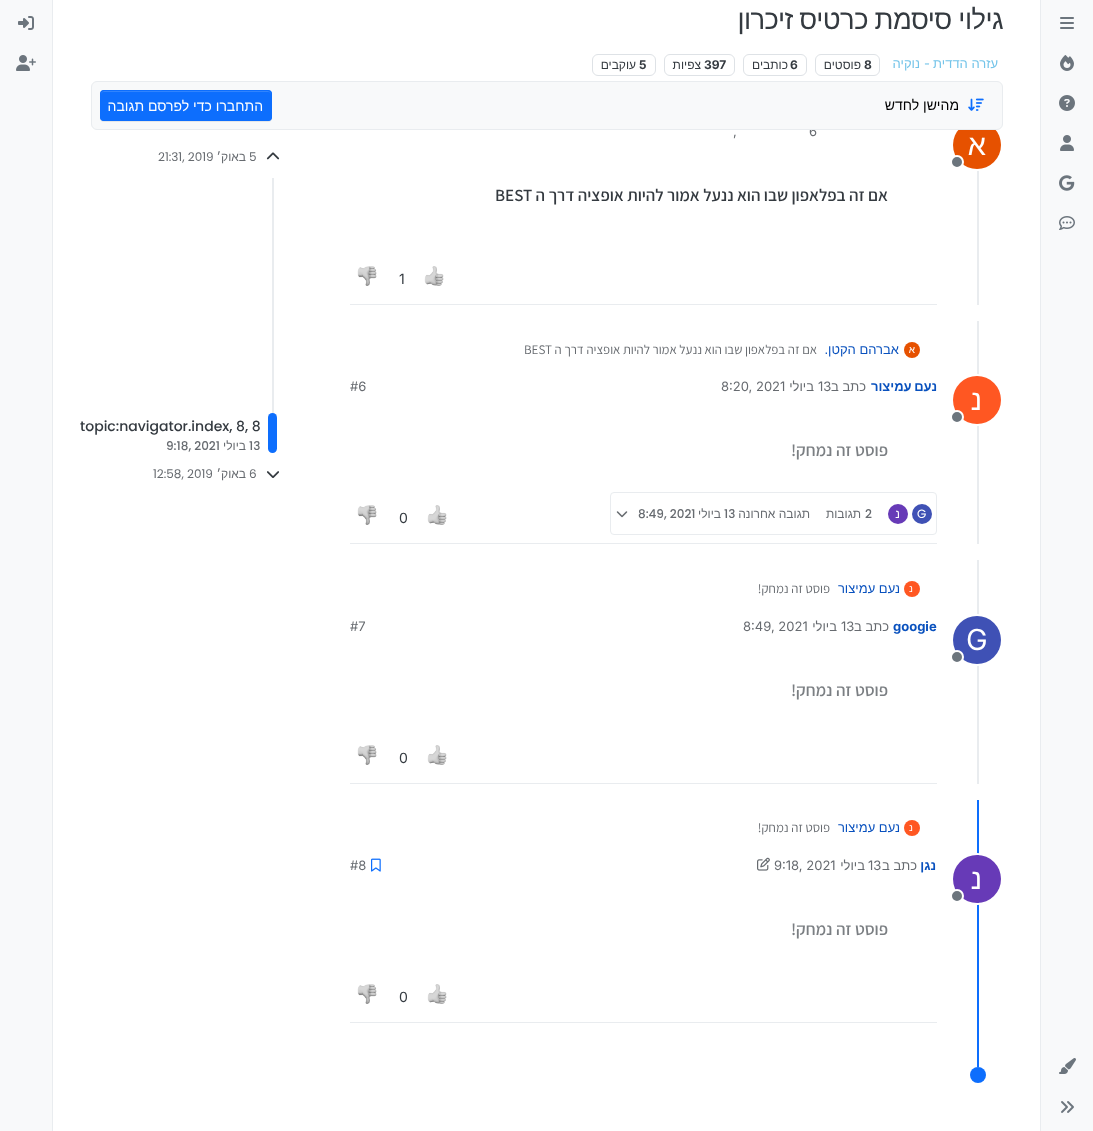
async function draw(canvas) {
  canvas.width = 1093;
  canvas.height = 1131;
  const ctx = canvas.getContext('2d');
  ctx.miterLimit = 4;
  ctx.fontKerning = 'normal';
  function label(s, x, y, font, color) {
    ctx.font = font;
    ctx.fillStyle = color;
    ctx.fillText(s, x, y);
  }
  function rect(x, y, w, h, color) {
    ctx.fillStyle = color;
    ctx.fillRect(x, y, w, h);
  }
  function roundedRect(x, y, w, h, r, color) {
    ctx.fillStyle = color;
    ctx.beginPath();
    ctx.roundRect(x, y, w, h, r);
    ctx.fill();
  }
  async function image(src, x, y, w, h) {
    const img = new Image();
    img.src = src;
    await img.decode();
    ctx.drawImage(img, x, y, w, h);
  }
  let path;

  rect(0, 0, 1093, 1131, '#fff');
  rect(1041, 0, 52, 1131, '#f8f9fa');
  rect(1040, 0, 1, 1131, '#e9ecef');
  await image('assets/img1.png', 1060, 17, 14, 12);
  await image('assets/img2.png', 1060, 55, 14, 16);
  await image('assets/img3.png', 1059, 95, 16, 16);
  await image('assets/img4.png', 1060, 135, 14, 16);
  await image('assets/img5.png', 1059, 175, 16, 16);
  await image('assets/img6.png', 1059, 216, 16, 14);
  await image('assets/img7.png', 1059, 1058, 17, 16);
  await image('assets/img8.png', 1061, 1101, 13, 12);
  ctx.letterSpacing = '-0.55px';
  ctx.wordSpacing = '-0.5px';
  ctx.direction = 'rtl';
  label('גילוי סיסמת כרטיס זיכרון', 1003, 29, '27.4px Liberation Sans', '#343a40');
  ctx.letterSpacing = '0px';
  ctx.wordSpacing = '0px';
  label('עזרה הדדית', 998, 68, '13px Liberation Sans', '#74c4e9');
  label('-', 930, 68, '13px Inter', '#74c4e9');
  label('נוקיה', 920, 68, '13px Liberation Sans', '#74c4e9');
  ctx.beginPath();
  ctx.roundRect(815.5, 54.5, 64, 21, 5.5);
  ctx.strokeStyle = '#dee2e6';
  ctx.stroke();
  ctx.direction = 'ltr';
  label('8', 864, 69, 'bold 12px Inter', '#343a40');
  ctx.direction = 'rtl';
  label('פוסטים', 861, 69, '12px Liberation Sans', '#343a40');
  ctx.beginPath();
  ctx.roundRect(743.5, 54.5, 63, 21, 5.5);
  ctx.stroke();
  ctx.direction = 'ltr';
  label('6', 790, 69, 'bold 12px Inter', '#343a40');
  ctx.direction = 'rtl';
  label('כותבים', 788, 69, '12px Liberation Sans', '#343a40');
  ctx.beginPath();
  ctx.roundRect(664.5, 54.5, 70, 21, 5.5);
  ctx.stroke();
  ctx.direction = 'ltr';
  label('397', 704, 69, 'bold 12px Inter', '#343a40');
  ctx.direction = 'rtl';
  label('צפיות', 701, 69, '12px Liberation Sans', '#343a40');
  ctx.beginPath();
  ctx.roundRect(592.5, 54.5, 63, 21, 5.5);
  ctx.stroke();
  ctx.direction = 'ltr';
  label('5', 639, 69, 'bold 12px Inter', '#343a40');
  ctx.direction = 'rtl';
  label('עוקבים', 636, 69, '12px Liberation Sans', '#343a40');
  rect(977, 168, 2, 137, '#e9ecef');
  ctx.beginPath();
  ctx.arc(977, 145, 25, 0, 2 * Math.PI);
  ctx.strokeStyle = '#fff';
  ctx.lineWidth = 2;
  ctx.stroke();
  ctx.fillStyle = '#e65100';
  ctx.beginPath();
  ctx.arc(977, 145, 24, 0, 2 * Math.PI);
  ctx.fill();
  ctx.direction = 'ltr';
  label('6', 809, 136, '13px Inter', '#676b70');
  ctx.fillStyle = '#f8f9fa';
  ctx.beginPath();
  ctx.roundRect(91.5, 81.5, 911, 48, 5.5);
  ctx.fill();
  ctx.strokeStyle = '#e9ecef';
  ctx.lineWidth = 1;
  ctx.stroke();
  await image('assets/img9.png', 968, 98, 16, 13);
  ctx.direction = 'rtl';
  label('מהישן לחדש', 959, 110, '14px Liberation Sans', '#000');
  ctx.fillStyle = '#00000012';
  ctx.filter = 'blur(0.5px)';
  ctx.beginPath();
  ctx.roundRect(100, 91, 172, 31, 4);
  ctx.fill();
  ctx.filter = 'none';
  roundedRect(100, 90, 172, 31, 4, '#0d6efd');
  ctx.fillStyle = '#3184fd';
  path = new Path2D('M104 92H268C270 92 271 93 271 95V94C271 92 270 91 268 91H104C102 91 101 92 101 94V95C101 93 102 92 104 92Z');
  ctx.fill(path);
  ctx.beginPath();
  ctx.roundRect(100.5, 90.5, 171, 30, 3.5);
  ctx.strokeStyle = '#0d6efd';
  ctx.stroke();
  label('התחברו כדי לפרסם תגובה', 263, 111, '14px Liberation Sans', '#fff');
  label('א', 986, 155, '29px Liberation Sans', '#fff');
  ctx.fillStyle = '#6c757d';
  ctx.beginPath();
  ctx.arc(957, 162, 6, 0, 2 * Math.PI);
  ctx.fill();
  ctx.strokeStyle = '#fff';
  ctx.lineWidth = 2;
  ctx.stroke();
  ctx.direction = 'ltr';
  label(',', 733, 136, '13px Inter', '#676b70');
  ctx.direction = 'rtl';
  label('אם זה בפלאפון שבו הוא ננעל אמור להיות אופציה דרך ה', 888, 201, '600 17px Assistant', '#343a40');
  ctx.direction = 'ltr';
  label('BEST', 495, 201, '600 17px Assistant', '#343a40');
  rect(350, 304, 587, 1, '#e9ecef');
  await image('assets/img10.png', 424, 266, 20, 20);
  label('1', 399, 284, '14px Inter', '#343a40');
  await image('assets/img11.png', 357, 266, 20, 20);
  rect(977, 321, 2, 223, '#e9ecef');
  ctx.fillStyle = '#e65100';
  ctx.beginPath();
  ctx.arc(912, 350, 8, 0, 2 * Math.PI);
  ctx.fill();
  ctx.direction = 'rtl';
  label('א', 915, 353, '10px Liberation Sans', '#fff');
  label('אברהם הקטן.', 899, 354, '13px Liberation Sans', '#0951be');
  label('אם זה בפלאפון שבו הוא ננעל אמור להיות אופציה דרך ה', 817, 354, '13px Assistant', '#676b70');
  ctx.direction = 'ltr';
  label('BEST', 524, 354, '13px Assistant', '#676b70');
  ctx.beginPath();
  ctx.arc(977, 400, 25, 0, 2 * Math.PI);
  ctx.stroke();
  ctx.fillStyle = '#ff5722';
  ctx.beginPath();
  ctx.arc(977, 400, 24, 0, 2 * Math.PI);
  ctx.fill();
  ctx.direction = 'rtl';
  label('נ', 982, 410, '29px Liberation Sans', '#fff');
  ctx.fillStyle = '#6c757d';
  ctx.beginPath();
  ctx.arc(957, 417, 6, 0, 2 * Math.PI);
  ctx.fill();
  ctx.stroke();
  ctx.wordSpacing = '-1px';
  label('נעם עמיצור', 937, 391, 'bold 13px Liberation Sans', '#0951be');
  ctx.wordSpacing = '0px';
  label('כתב ב', 866, 391, '13px Liberation Sans', '#676b70');
  ctx.direction = 'ltr';
  label('13', 818, 391, '13px Inter', '#676b70');
  ctx.direction = 'rtl';
  label('ביולי', 814, 391, '13px Liberation Sans', '#676b70');
  ctx.direction = 'ltr';
  label('8:20, 2021', 721, 391, '13px Inter', '#676b70');
  label('#6', 350, 391, '13px Inter', '#676b70');
  ctx.direction = 'rtl';
  label('פוסט זה נמחק!', 888, 456, '600 17px Assistant', '#7b7f83');
  rect(350, 543, 587, 1, '#e9ecef');
  ctx.beginPath();
  ctx.roundRect(610.5, 492.5, 326, 42, 3.5);
  ctx.strokeStyle = '#e9ecef';
  ctx.lineWidth = 1;
  ctx.stroke();
  ctx.fillStyle = '#3f51b5';
  ctx.beginPath();
  ctx.arc(922, 514, 10, 0, 2 * Math.PI);
  ctx.fill();
  ctx.direction = 'ltr';
  label('G', 917, 518, '12px Poppins', '#fff');
  ctx.fillStyle = '#673ab7';
  ctx.beginPath();
  ctx.arc(898, 514, 10, 0, 2 * Math.PI);
  ctx.fill();
  ctx.direction = 'rtl';
  label('נ', 900, 518, '12px Liberation Sans', '#fff');
  ctx.direction = 'ltr';
  label('2', 865, 518, '500 12px Poppins', '#676b70');
  ctx.direction = 'rtl';
  label('תגובות', 861, 518, '12px Liberation Sans', '#676b70');
  label('תגובה אחרונה', 810, 518, '12px Liberation Sans', '#676b70');
  ctx.direction = 'ltr';
  label('13', 724, 518, '500 12px Poppins', '#676b70');
  ctx.direction = 'rtl';
  label('ביולי', 721, 518, '12px Liberation Sans', '#676b70');
  ctx.direction = 'ltr';
  label('8:49, 2021', 638, 518, '500 12px Poppins', '#676b70');
  await image('assets/img12.png', 616, 511, 12, 7);
  await image('assets/img10.png', 427, 505, 20, 20);
  label('0', 399, 523, '14px Inter', '#343a40');
  await image('assets/img11.png', 357, 505, 20, 20);
  rect(977, 560, 2, 224, '#e9ecef');
  ctx.fillStyle = '#ff5722';
  ctx.beginPath();
  ctx.arc(912, 589, 8, 0, 2 * Math.PI);
  ctx.fill();
  ctx.direction = 'rtl';
  label('נ', 913, 592, '10px Liberation Sans', '#fff');
  label('נעם עמיצור', 900, 593, '13px Liberation Sans', '#0951be');
  label('פוסט זה נמחק!', 830, 593, '13px Assistant', '#676b70');
  ctx.beginPath();
  ctx.arc(977, 640, 25, 0, 2 * Math.PI);
  ctx.strokeStyle = '#fff';
  ctx.lineWidth = 2;
  ctx.stroke();
  ctx.fillStyle = '#3f51b5';
  ctx.beginPath();
  ctx.arc(977, 640, 24, 0, 2 * Math.PI);
  ctx.fill();
  ctx.direction = 'ltr';
  label('G', 966, 650, '29px Inter', '#fff');
  ctx.fillStyle = '#6c757d';
  ctx.beginPath();
  ctx.arc(957, 657, 6, 0, 2 * Math.PI);
  ctx.fill();
  ctx.stroke();
  label('googie', 893, 631, 'bold 13px Inter', '#0951be');
  ctx.direction = 'rtl';
  label('כתב ב', 889, 631, '13px Liberation Sans', '#676b70');
  ctx.direction = 'ltr';
  label('13', 841, 631, '13px Inter', '#676b70');
  ctx.direction = 'rtl';
  label('ביולי', 837, 631, '13px Liberation Sans', '#676b70');
  ctx.direction = 'ltr';
  label('8:49, 2021', 743, 631, '13px Inter', '#676b70');
  label('#7', 350, 631, '13px Inter', '#676b70');
  ctx.direction = 'rtl';
  label('פוסט זה נמחק!', 888, 696, '600 17px Assistant', '#7b7f83');
  rect(350, 783, 587, 1, '#e9ecef');
  await image('assets/img10.png', 427, 745, 20, 20);
  ctx.direction = 'ltr';
  label('0', 399, 763, '14px Inter', '#343a40');
  await image('assets/img11.png', 357, 745, 20, 20);
  rect(977, 800, 2, 267, '#0d6efd');
  ctx.fillStyle = '#ff5722';
  ctx.beginPath();
  ctx.arc(912, 828, 8, 0, 2 * Math.PI);
  ctx.fill();
  ctx.direction = 'rtl';
  label('נ', 913, 831, '10px Liberation Sans', '#fff');
  label('נעם עמיצור', 900, 832, '13px Liberation Sans', '#0951be');
  label('פוסט זה נמחק!', 830, 832, '13px Assistant', '#676b70');
  ctx.beginPath();
  ctx.arc(977, 879, 25, 0, 2 * Math.PI);
  ctx.stroke();
  ctx.fillStyle = '#673ab7';
  ctx.beginPath();
  ctx.arc(977, 879, 24, 0, 2 * Math.PI);
  ctx.fill();
  label('נ', 982, 889, '29px Liberation Sans', '#fff');
  ctx.fillStyle = '#6c757d';
  ctx.beginPath();
  ctx.arc(957, 896, 6, 0, 2 * Math.PI);
  ctx.fill();
  ctx.stroke();
  label('נגן', 936, 870, 'bold 13px Liberation Sans', '#0951be');
  label('כתב ב', 917, 870, '13px Liberation Sans', '#676b70');
  ctx.direction = 'ltr';
  label('13', 868, 870, '13px Inter', '#676b70');
  ctx.direction = 'rtl';
  label('ביולי', 865, 870, '13px Liberation Sans', '#676b70');
  ctx.direction = 'ltr';
  label('9:18, 2021', 774, 870, '13px Inter', '#676b70');
  await image('assets/img13.png', 757, 857, 13, 14);
  await image('assets/img14.png', 371, 858, 10, 14);
  label('#8', 350, 870, '13px Inter', '#676b70');
  ctx.direction = 'rtl';
  label('פוסט זה נמחק!', 888, 935, '600 17px Assistant', '#7b7f83');
  rect(350, 1022, 587, 1, '#e9ecef');
  await image('assets/img10.png', 427, 984, 20, 20);
  ctx.direction = 'ltr';
  label('0', 399, 1002, '14px Inter', '#343a40');
  await image('assets/img11.png', 357, 984, 20, 20);
  ctx.fillStyle = '#0d6efd';
  ctx.beginPath();
  ctx.arc(978, 1075, 8, 0, 2 * Math.PI);
  ctx.fill();
  await image('assets/img15.png', 266, 152, 14, 8);
  label('5', 249, 161, '12px Poppins', '#676b70');
  ctx.direction = 'rtl';
  label('באוק׳', 246, 161, '12px Liberation Sans', '#676b70');
  ctx.direction = 'ltr';
  label('21:31, 2019', 158, 161, '12px Poppins', '#676b70');
  rect(272, 178, 2, 275, '#e9ecef');
  roundedRect(268, 413, 9, 40, 4.5, '#0d6efd');
  label('topic:navigator.index, 8, 8', 80, 431, '500 14px Poppins', '#343a40');
  label('13', 249, 450, '500 12px Poppins', '#676b70');
  ctx.direction = 'rtl';
  label('ביולי', 246, 450, '12px Liberation Sans', '#676b70');
  ctx.direction = 'ltr';
  label('9:18, 2021', 166, 450, '500 12px Poppins', '#676b70');
  await image('assets/img16.png', 267, 471, 12, 7);
  label('6', 249, 478, '12px Poppins', '#676b70');
  ctx.direction = 'rtl';
  label('באוק׳', 246, 478, '12px Liberation Sans', '#676b70');
  ctx.direction = 'ltr';
  label('12:58, 2019', 153, 478, '12px Poppins', '#676b70');
  rect(0, 0, 52, 1131, '#f8f9fa');
  rect(52, 0, 1, 1131, '#e9ecef');
  await image('assets/img17.png', 18, 16, 16, 14);
  await image('assets/img18.png', 16, 55, 20, 16);
}

draw(document.querySelector('canvas'));
